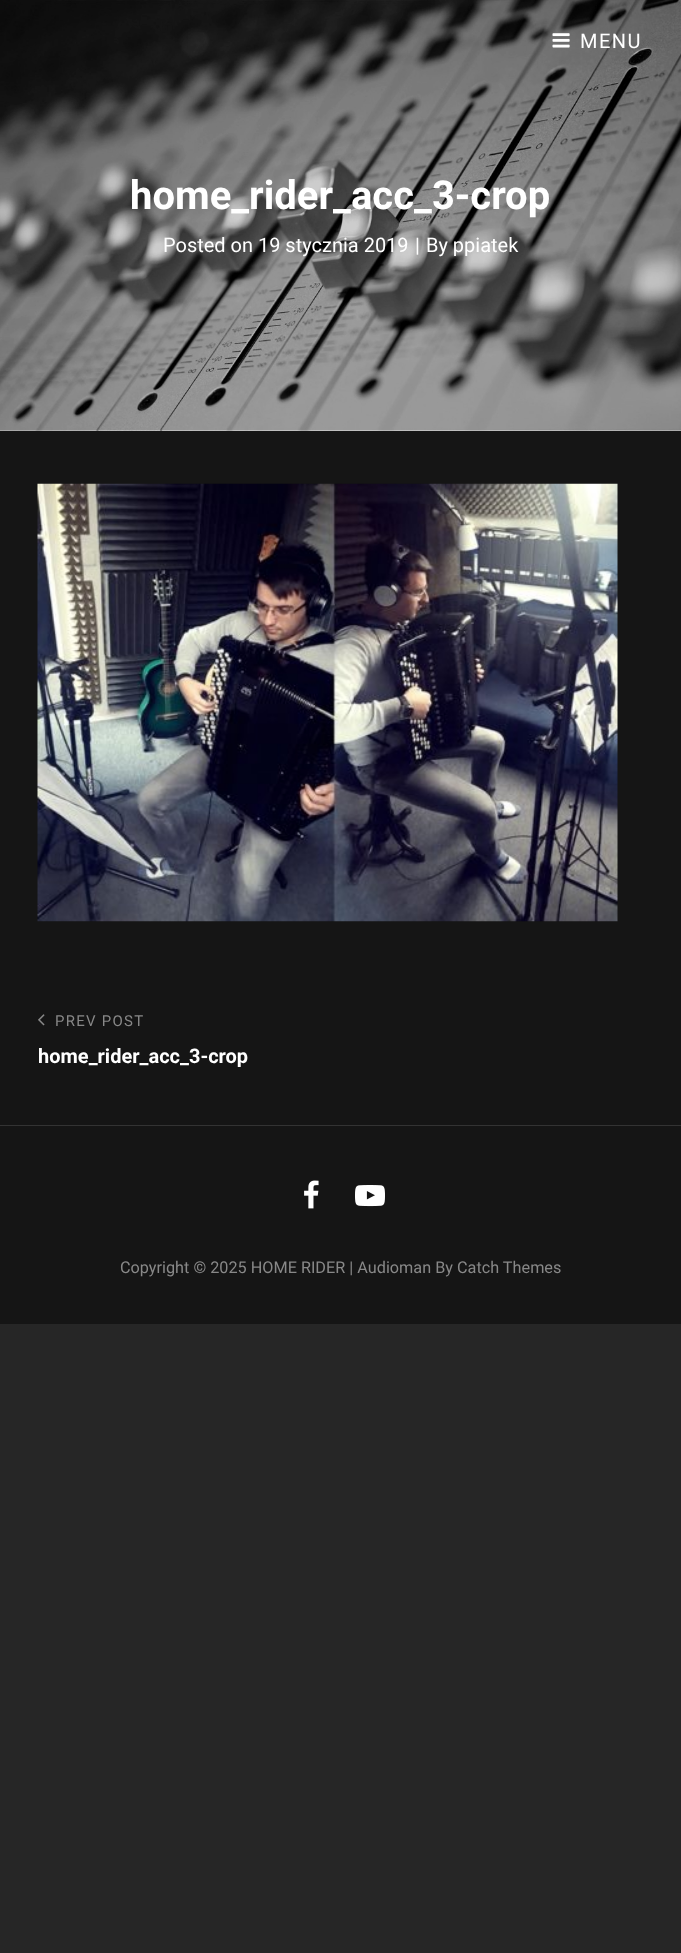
async function draw(canvas) {
  canvas.width = 681;
  canvas.height = 1953;
  const ctx = canvas.getContext('2d');
  ctx.miterLimit = 4;
  ctx.fontKerning = 'normal';
  function label(s, x, y, font, color) {
    ctx.font = font;
    ctx.fillStyle = color;
    ctx.fillText(s, x, y);
  }
  function rect(x, y, w, h, color) {
    ctx.fillStyle = color;
    ctx.fillRect(x, y, w, h);
  }
  async function image(src, x, y, w, h) {
    const img = new Image();
    img.src = src;
    await img.decode();
    ctx.drawImage(img, x, y, w, h);
  }

  rect(0, 0, 681, 1953, '#262626');
  await image('assets/img2.png', 0, 0, 681, 430);
  await image('assets/img1.png', 552, 33, 18, 15);
  ctx.letterSpacing = '1.5px';
  label('MENU', 580, 48, '20px Roboto', '#fff');
  ctx.letterSpacing = '0px';
  label('home_rider_acc_3-crop', 130, 209, 'bold 40px Roboto', '#fff');
  label('Posted on 19 stycznia 2019', 163, 252, '20px Roboto', '#fff');
  label('|', 415, 252, '20px Roboto', '#fff');
  label('By ppiatek', 426, 252, '20px Roboto', '#fff');
  await image('assets/img3.png', 0, 430, 681, 1);
  rect(0, 431, 681, 893, '#151515');
  rect(0, 1125, 681, 1, '#333');
  await image('assets/img4.png', 37, 483, 581, 439);
  await image('assets/img5.png', 38, 1014, 7, 12);
  ctx.letterSpacing = '1.25px';
  label('PREV POST', 55, 1026, '15px Roboto', '#888');
  ctx.letterSpacing = '0px';
  label('home_rider_acc_3-crop', 38, 1063, 'bold 20px Roboto', '#fff');
  await image('assets/img6.png', 304, 1180, 15, 29);
  await image('assets/img7.png', 355, 1185, 30, 22);
  label('Copyright © 2025 HOME RIDER | Audioman By Catch Themes', 120, 1273, '16.25px Roboto', '#888');
}

draw(document.querySelector('canvas'));
